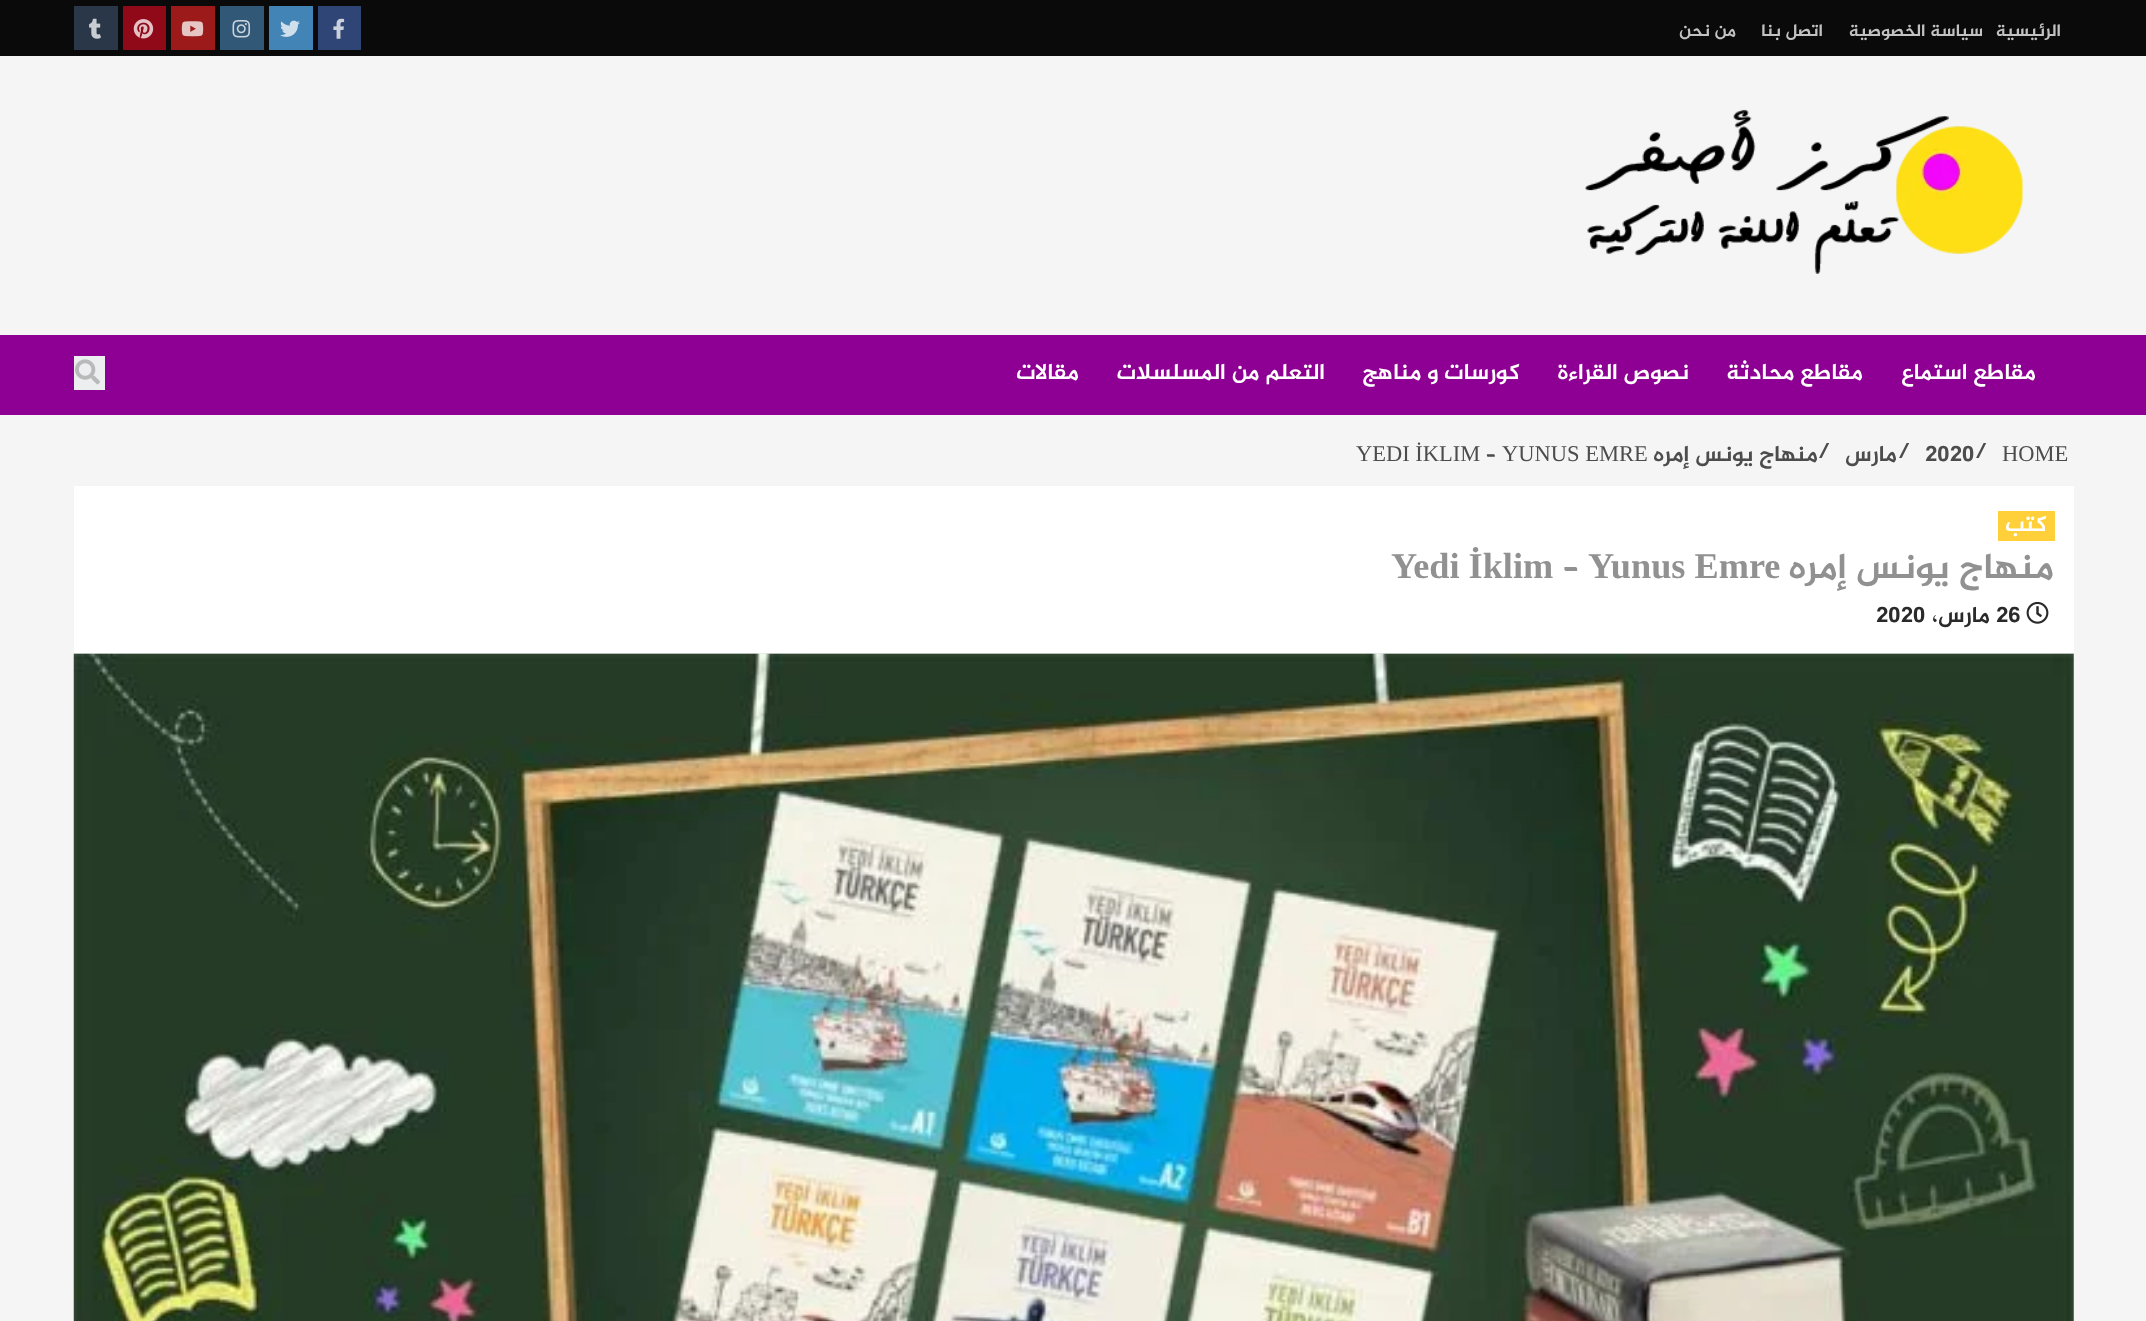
async function draw(canvas) {
  canvas.width = 2146;
  canvas.height = 1321;
  const ctx = canvas.getContext('2d');
  ctx.miterLimit = 4;
  ctx.fontKerning = 'normal';
  function label(s, x, y, font, color) {
    ctx.font = font;
    ctx.fillStyle = color;
    ctx.fillText(s, x, y);
  }
  function rect(x, y, w, h, color) {
    ctx.fillStyle = color;
    ctx.fillRect(x, y, w, h);
  }
  async function image(src, x, y, w, h) {
    const img = new Image();
    img.src = src;
    await img.decode();
    ctx.drawImage(img, x, y, w, h);
  }

  rect(0, 0, 2146, 1321, '#f5f5f5');
  rect(0, 0, 2146, 56, '#0a0a0a');
  ctx.direction = 'rtl';
  label('الرئيسية', 2061, 36, 'bold 17.5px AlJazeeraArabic', '#c2c2c2');
  label('سياسة الخصوصية', 1983, 36, 'bold 17.5px AlJazeeraArabic', '#c2c2c2');
  label('اتصل بنا', 1823, 36, 'bold 17.5px AlJazeeraArabic', '#c2c2c2');
  label('من نحن', 1736, 36, 'bold 17.5px AlJazeeraArabic', '#c2c2c2');
  rect(318, 6, 43, 44, '#2f4575');
  await image('assets/img1.png', 333, 18, 12, 21);
  rect(269, 6, 44, 44, '#4284b5');
  await image('assets/img2.png', 280, 20, 20, 17);
  rect(220, 6, 44, 44, '#325877');
  await image('assets/img3.png', 232, 19, 19, 19);
  rect(171, 6, 44, 44, '#9c1b1a');
  await image('assets/img4.png', 181, 21, 23, 16);
  rect(123, 6, 43, 44, '#900918');
  await image('assets/img5.png', 133, 19, 21, 20);
  rect(74, 6, 44, 44, '#2a3748');
  await image('assets/img6.png', 89, 18, 12, 21);
  await image('assets/img7.png', 1585, 109, 438, 165);
  rect(0, 335, 2146, 80, '#8e0093');
  label('مقاطع استماع', 2036, 379, 'bold 22.5px AlJazeeraArabic', '#fff');
  label('مقاطع محادثة', 1863, 379, 'bold 22.5px AlJazeeraArabic', '#fff');
  label('نصوص القراءة', 1689, 379, 'bold 22.5px AlJazeeraArabic', '#fff');
  label('كورسات و مناهج', 1520, 379, 'bold 22.5px AlJazeeraArabic', '#fff');
  label('التعلم من المسلسلات', 1325, 379, 'bold 22.5px AlJazeeraArabic', '#fff');
  label('مقالات', 1079, 379, 'bold 22.5px AlJazeeraArabic', '#fff');
  rect(74, 356, 31, 34, '#eceeef');
  await image('assets/img8.png', 75, 359, 25, 26);
  ctx.direction = 'ltr';
  label('HOME', 2002, 461, '22.5px Liberation Serif', '#4c4c4c');
  label('/', 1975, 458, 'bold 22.5px AlJazeeraArabic', '#4c4c4c');
  label('2020', 1925, 461, 'bold 22.5px AlJazeeraArabic', '#4c4c4c');
  label('/', 1898, 458, 'bold 22.5px AlJazeeraArabic', '#4c4c4c');
  ctx.direction = 'rtl';
  label('مارس', 1897, 461, 'bold 22.5px AlJazeeraArabic', '#4c4c4c');
  ctx.direction = 'ltr';
  label('/', 1818, 458, 'bold 22.5px AlJazeeraArabic', '#4c4c4c');
  ctx.direction = 'rtl';
  label('منهاج يونس إمره', 1818, 461, 'bold 22.5px AlJazeeraArabic', '#4c4c4c');
  ctx.direction = 'ltr';
  label('YUNUS EMRE', 1502, 461, '22.5px Liberation Serif', '#4c4c4c');
  label('–', 1486, 461, 'bold 22.5px AlJazeeraArabic', '#4c4c4c');
  label('YEDI İKLIM', 1356, 461, '22.5px Liberation Serif', '#4c4c4c');
  rect(74, 486, 2000, 835, '#fff');
  rect(74, 653, 2000, 1, '#e6e6e6');
  rect(1998, 511, 57, 30, '#ffd039');
  ctx.direction = 'rtl';
  label('كتب', 2047, 531, 'bold 22.5px AlJazeeraArabic', '#fff');
  label('منهاج يونس إمره', 2054, 578, 'bold 36.25px AlJazeeraArabic', '#919191');
  ctx.direction = 'ltr';
  label('Yunus Emre', 1588, 578, 'bold 36.25px Liberation Serif', '#919191');
  label('–', 1563, 578, 'bold 36.25px AlJazeeraArabic', '#919191');
  label('Yedi İklim', 1391, 578, 'bold 36.25px Liberation Serif', '#919191');
  await image('assets/img9.png', 2026, 601, 23, 23);
  label('26', 1996, 622, 'bold 22.5px AlJazeeraArabic', '#2a2a2a');
  ctx.direction = 'rtl';
  label('مارس،', 1990, 622, 'bold 22.5px AlJazeeraArabic', '#2a2a2a');
  ctx.direction = 'ltr';
  label('2020', 1876, 622, 'bold 22.5px AlJazeeraArabic', '#2a2a2a');
  await image('assets/img10.png', 73, 653, 2001, 668);
}

draw(document.querySelector('canvas'));
